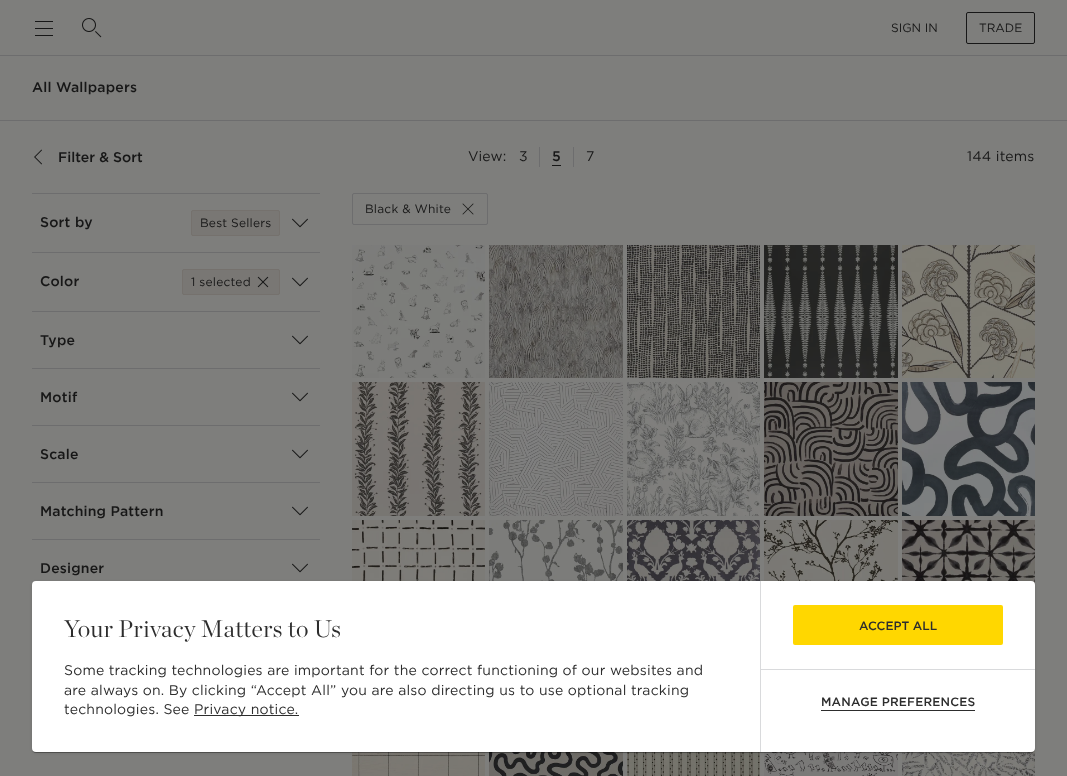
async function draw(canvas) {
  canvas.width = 1067;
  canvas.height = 776;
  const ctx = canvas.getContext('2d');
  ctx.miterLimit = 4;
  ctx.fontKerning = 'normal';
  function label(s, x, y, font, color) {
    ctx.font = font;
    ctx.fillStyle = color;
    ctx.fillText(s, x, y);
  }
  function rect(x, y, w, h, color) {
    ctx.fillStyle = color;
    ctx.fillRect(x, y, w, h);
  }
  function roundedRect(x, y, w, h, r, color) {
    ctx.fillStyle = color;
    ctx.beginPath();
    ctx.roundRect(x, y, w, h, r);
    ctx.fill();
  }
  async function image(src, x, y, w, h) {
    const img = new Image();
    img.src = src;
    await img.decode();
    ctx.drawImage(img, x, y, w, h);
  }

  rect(0, 0, 1067, 776, '#7e7e7c');
  rect(0, 55, 1067, 1, '#6d6d6e');
  rect(35, 28, 18, 1, '#171717');
  rect(35, 35, 18, 1, '#171717');
  rect(35, 21, 18, 1, '#171717');
  await image('assets/img1.png', 82, 18, 20, 20);
  label('SIGN IN', 891, 32, '12px Gotham', '#171717');
  ctx.beginPath();
  ctx.roundRect(966.5, 12.5, 68, 31, 1.5);
  ctx.strokeStyle = '#171717';
  ctx.stroke();
  label('TRADE', 979, 32, '12px Gotham', '#171717');
  rect(0, 120, 1067, 1, '#6d6d6e');
  ctx.letterSpacing = '0.2px';
  label('All Wallpapers', 32, 92, '500 14px Gotham', '#171717');
  await image('assets/img2.png', 34, 149, 8, 16);
  ctx.letterSpacing = '0px';
  label('Filter & Sort', 58, 162, '500 14px Gotham', '#171717');
  ctx.letterSpacing = '0.2px';
  label('View:', 468, 161, '14px Gotham', '#171717');
  label('3', 519, 161, '14px Gotham', '#171717');
  rect(539, 147, 1, 20, '#6d6d6e');
  label('5', 552, 161, '500 14px Gotham', '#171717');
  rect(552, 165, 9, 1, '#171717');
  rect(573, 147, 1, 20, '#6d6d6e');
  label('7', 586, 161, '14px Gotham', '#171717');
  label('144 items', 967, 161, '14px Gotham', '#171717');
  ctx.beginPath();
  ctx.roundRect(352.5, 193.5, 135, 31, 1.5);
  ctx.strokeStyle = '#6d6d6e';
  ctx.stroke();
  label('Black & White', 365, 213, '12px Gotham', '#171717');
  await image('assets/img3.png', 462, 203, 12, 12);
  await image('assets/img4.png', 352, 245, 133, 133);
  await image('assets/img5.png', 489, 245, 134, 133);
  await image('assets/img6.png', 627, 245, 133, 133);
  await image('assets/img7.png', 764, 245, 134, 133);
  await image('assets/img8.png', 902, 245, 133, 133);
  await image('assets/img9.png', 352, 382, 133, 134);
  await image('assets/img10.png', 489, 382, 134, 134);
  await image('assets/img11.png', 627, 382, 133, 134);
  await image('assets/img12.png', 764, 382, 134, 134);
  await image('assets/img13.png', 902, 382, 133, 134);
  await image('assets/img14.png', 352, 520, 133, 61);
  await image('assets/img15.png', 489, 520, 134, 61);
  await image('assets/img16.png', 627, 520, 133, 61);
  await image('assets/img17.png', 764, 520, 134, 61);
  await image('assets/img18.png', 902, 520, 133, 65);
  await image('assets/img19.png', 352, 752, 133, 24);
  await image('assets/img20.png', 489, 752, 134, 24);
  await image('assets/img21.png', 627, 752, 133, 24);
  await image('assets/img22.png', 764, 752, 134, 24);
  await image('assets/img23.png', 902, 748, 133, 28);
  rect(32, 193, 288, 1, '#6d6d6e');
  label('Sort by', 40, 227, '500 14px Gotham', '#171717');
  ctx.fillStyle = '#797774';
  ctx.beginPath();
  ctx.roundRect(191.5, 210.5, 88, 25, 1.5);
  ctx.fill();
  ctx.strokeStyle = '#75716d';
  ctx.stroke();
  label('Best Sellers', 200, 227, '12px Gotham', '#171717');
  await image('assets/img24.png', 292, 218, 16, 10);
  rect(32, 252, 288, 1, '#6d6d6e');
  label('Color', 40, 286, '500 14px Gotham', '#171717');
  ctx.fillStyle = '#797774';
  ctx.beginPath();
  ctx.roundRect(182.5, 269.5, 97, 25, 1.5);
  ctx.fill();
  ctx.stroke();
  label('1 selected', 191, 286, '12px Gotham', '#171717');
  await image('assets/img25.png', 257, 276, 12, 12);
  await image('assets/img24.png', 292, 277, 16, 10);
  rect(32, 311, 288, 1, '#6d6d6e');
  label('Type', 40, 345, '500 14px Gotham', '#171717');
  await image('assets/img24.png', 292, 335, 16, 10);
  rect(32, 368, 288, 1, '#6d6d6e');
  label('Motif', 40, 402, '500 14px Gotham', '#171717');
  await image('assets/img24.png', 292, 392, 16, 10);
  rect(32, 425, 288, 1, '#6d6d6e');
  label('Scale', 40, 459, '500 14px Gotham', '#171717');
  await image('assets/img24.png', 292, 449, 16, 10);
  rect(32, 482, 288, 1, '#6d6d6e');
  label('Matching Pattern', 40, 516, '500 14px Gotham', '#171717');
  await image('assets/img24.png', 292, 506, 16, 10);
  rect(32, 539, 288, 1, '#6d6d6e');
  label('Designer', 40, 573, '500 14px Gotham', '#171717');
  await image('assets/img24.png', 292, 563, 16, 10);
  ctx.fillStyle = '#0000001f';
  ctx.filter = 'blur(1.5px)';
  ctx.beginPath();
  ctx.roundRect(32, 582, 1003, 171, 4);
  ctx.fill();
  ctx.filter = 'none';
  ctx.fillStyle = '#00000024';
  ctx.filter = 'blur(0.5px)';
  ctx.beginPath();
  ctx.roundRect(32, 582, 1003, 171, 4);
  ctx.fill();
  ctx.filter = 'none';
  ctx.fillStyle = '#00000033';
  ctx.filter = 'blur(0.5px)';
  ctx.beginPath();
  ctx.roundRect(33, 584, 1001, 169, 3);
  ctx.fill();
  ctx.filter = 'none';
  roundedRect(32, 581, 1003, 171, 4, '#fff');
  ctx.letterSpacing = '0.35px';
  label('Your Privacy Matters to Us', 64, 637, '300 24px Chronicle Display', '#2d2d2d');
  ctx.letterSpacing = '0.2px';
  label('Some tracking technologies are important for the correct functioning of our websites and', 64, 675, '14px Gotham', '#2d2d2d');
  label('are always on. By clicking “Accept All” you are also directing us to use optional tracking', 64, 695, '14px Gotham', '#2d2d2d');
  label('technologies. See', 64, 714, '14px Gotham', '#2d2d2d');
  rect(194, 715, 105, 1, '#2d2d2d');
  label('Privacy notice.', 194, 714, '14px Gotham', '#2d2d2d');
  rect(760, 581, 1, 171, '#d9dadc');
  roundedRect(793, 605, 210, 40, 2, '#ffd700');
  ctx.letterSpacing = '0px';
  label('ACCEPT ALL', 859, 630, '500 12px Gotham', '#2d2d2d');
  rect(761, 669, 274, 1, '#d9dadc');
  rect(821, 710, 154, 1, '#2d2d2d');
  ctx.letterSpacing = '0.2px';
  label('MANAGE PREFERENCES', 821, 706, '500 12px Gotham', '#2d2d2d');
}

draw(document.querySelector('canvas'));
